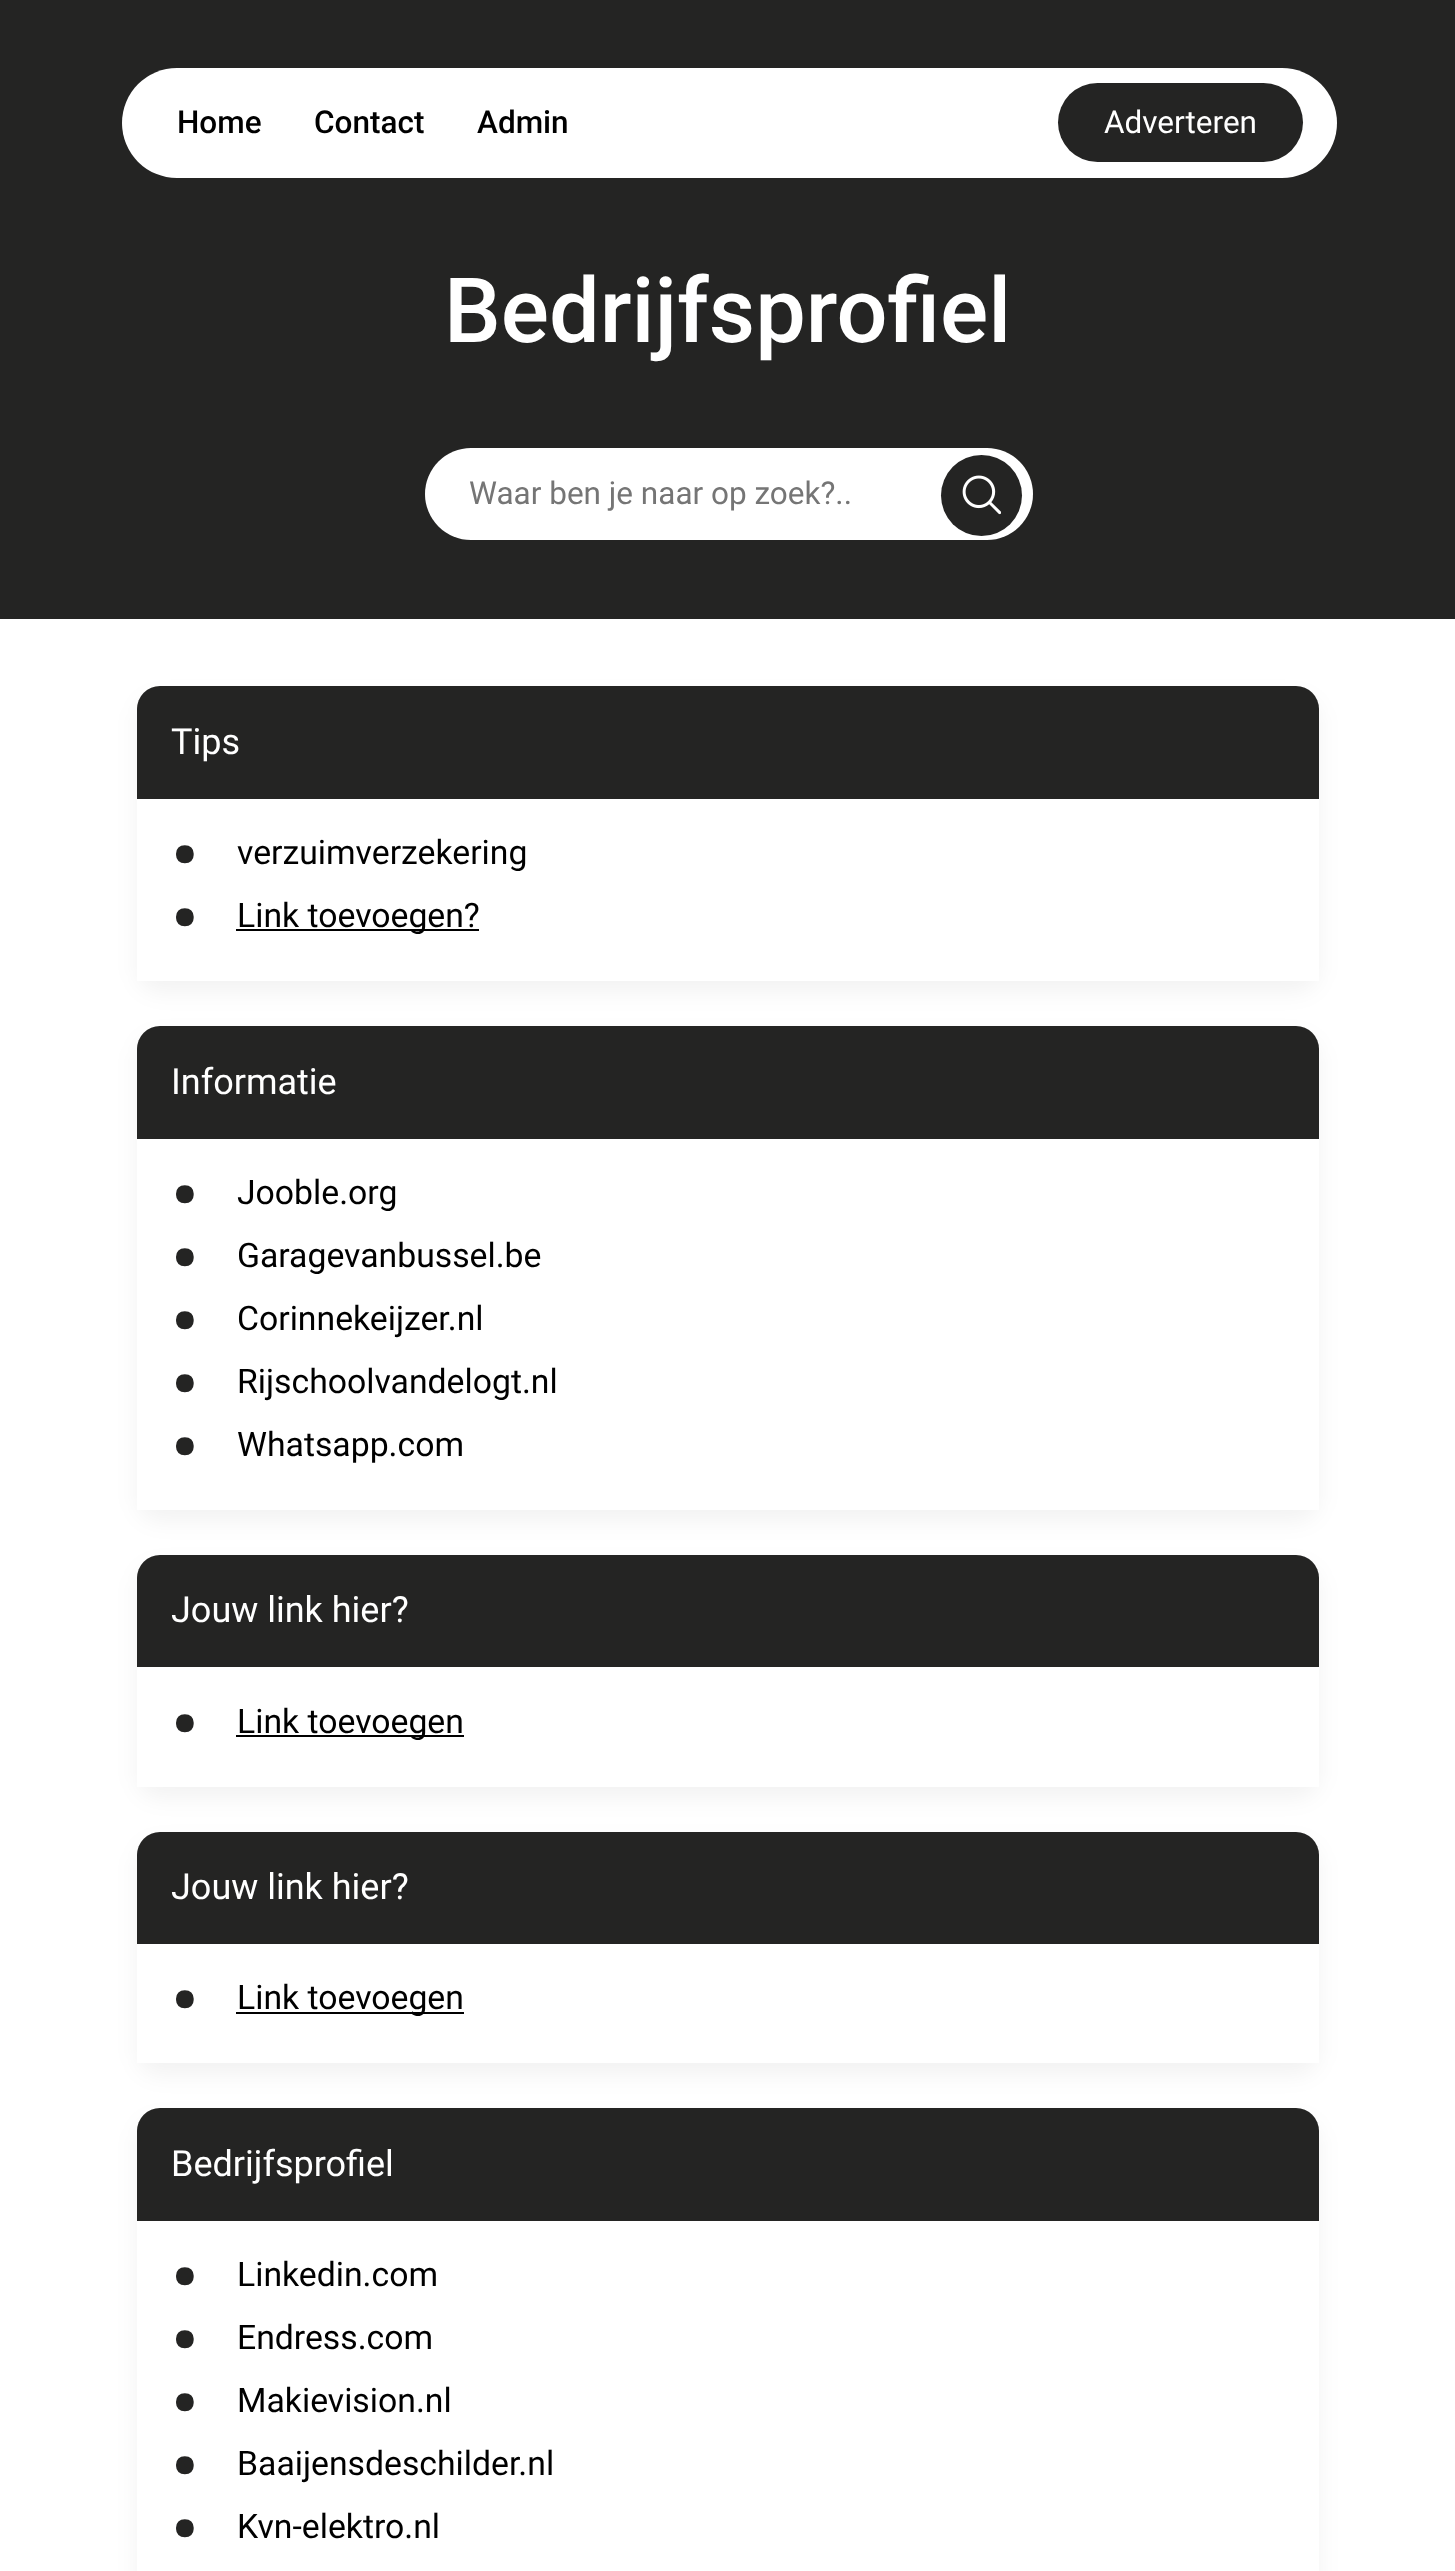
async function draw(canvas) {
  canvas.width = 1455;
  canvas.height = 2571;
  const ctx = canvas.getContext('2d');
  ctx.miterLimit = 4;
  ctx.fontKerning = 'normal';
  function label(s, x, y, font, color) {
    ctx.font = font;
    ctx.fillStyle = color;
    ctx.fillText(s, x, y);
  }
  function rect(x, y, w, h, color) {
    ctx.fillStyle = color;
    ctx.fillRect(x, y, w, h);
  }
  function roundedRect(x, y, w, h, r, color) {
    ctx.fillStyle = color;
    ctx.beginPath();
    ctx.roundRect(x, y, w, h, r);
    ctx.fill();
  }
  async function image(src, x, y, w, h) {
    const img = new Image();
    img.src = src;
    await img.decode();
    ctx.drawImage(img, x, y, w, h);
  }
  let path;

  rect(0, 0, 1455, 2571, '#fff');
  rect(0, 0, 1455, 619, '#242423');
  roundedRect(122, 68, 1215, 110, 55, '#fff');
  label('Home', 177, 133, '500 31.5px Roboto', '#000');
  label('Contact', 314, 133, '500 31.5px Roboto', '#000');
  label('Admin', 477, 133, '500 31.5px Roboto', '#000');
  roundedRect(1058, 83, 245, 79, 39.5, '#242423');
  label('Adverteren', 1104, 133, '31.5px Roboto', '#fff');
  label('Bedrijfsprofiel', 444, 342, '500 90px Roboto', '#fff');
  roundedRect(425, 448, 608, 92, 46, '#fff');
  label('Waar ben je naar op zoek?..', 469, 504, '31.5px Roboto', '#757575');
  ctx.fillStyle = '#242423';
  ctx.beginPath();
  ctx.arc(981.5, 495.5, 40.5, 0, 2 * Math.PI);
  ctx.fill();
  await image('assets/img1.png', 962, 475, 39, 40);
  ctx.fillStyle = '#0000000d';
  ctx.filter = 'blur(11px)';
  ctx.beginPath();
  ctx.roundRect(137, 698, 1182, 294, 23);
  ctx.fill();
  ctx.filter = 'none';
  ctx.fillStyle = '#fff';
  ctx.beginPath();
  ctx.roundRect(137, 686, 1182, 295, [23, 23, 0, 0]);
  ctx.fill();
  ctx.fillStyle = '#242423';
  ctx.beginPath();
  ctx.roundRect(137, 686, 1182, 113, [23, 23, 0, 0]);
  ctx.fill();
  label('Tips', 171, 754, '36px Roboto', '#fff');
  label('•', 171, 882, 'bold 76px Roboto', '#242423');
  label('verzuimverzekering', 237, 864, '33.75px Roboto', '#000');
  label('•', 171, 945, 'bold 76px Roboto', '#242423');
  rect(236, 929, 243, 2, '#000');
  label('Link toevoegen?', 237, 927, '33.75px Roboto', '#000');
  ctx.fillStyle = '#0000000d';
  ctx.filter = 'blur(11px)';
  ctx.beginPath();
  ctx.roundRect(137, 1037, 1182, 484, 23);
  ctx.fill();
  ctx.filter = 'none';
  ctx.fillStyle = '#fff';
  ctx.beginPath();
  ctx.roundRect(137, 1026, 1182, 484, [23, 23, 0, 0]);
  ctx.fill();
  ctx.fillStyle = '#242423';
  ctx.beginPath();
  ctx.roundRect(137, 1026, 1182, 113, [23, 23, 0, 0]);
  ctx.fill();
  label('Informatie', 171, 1094, '36px Roboto', '#fff');
  label('•', 171, 1222, 'bold 76px Roboto', '#242423');
  label('Jooble.org', 237, 1204, '33.75px Roboto', '#000');
  label('•', 171, 1285, 'bold 76px Roboto', '#242423');
  label('Garagevanbussel.be', 237, 1267, '33.75px Roboto', '#000');
  label('•', 171, 1348, 'bold 76px Roboto', '#242423');
  label('Corinnekeijzer.nl', 237, 1330, '33.75px Roboto', '#000');
  label('•', 171, 1411, 'bold 76px Roboto', '#242423');
  label('Rijschoolvandelogt.nl', 237, 1393, '33.75px Roboto', '#000');
  label('•', 171, 1474, 'bold 76px Roboto', '#242423');
  label('Whatsapp.com', 237, 1456, '33.75px Roboto', '#000');
  ctx.fillStyle = '#0000000d';
  ctx.filter = 'blur(11px)';
  ctx.beginPath();
  ctx.roundRect(137, 1566, 1182, 232, 23);
  ctx.fill();
  ctx.filter = 'none';
  ctx.fillStyle = '#fff';
  ctx.beginPath();
  ctx.roundRect(137, 1555, 1182, 232, [23, 23, 0, 0]);
  ctx.fill();
  ctx.fillStyle = '#242423';
  ctx.beginPath();
  ctx.roundRect(137, 1555, 1182, 112, [23, 23, 0, 0]);
  ctx.fill();
  label('Jouw link hier?', 171, 1622, '36px Roboto', '#fff');
  label('•', 171, 1751, 'bold 76px Roboto', '#242423');
  rect(236, 1735, 228, 2, '#000');
  label('Link toevoegen', 237, 1733, '33.75px Roboto', '#000');
  ctx.fillStyle = '#0000000d';
  ctx.filter = 'blur(11px)';
  ctx.beginPath();
  ctx.roundRect(137, 1843, 1182, 232, 23);
  ctx.fill();
  ctx.filter = 'none';
  ctx.fillStyle = '#fff';
  ctx.beginPath();
  ctx.roundRect(137, 1832, 1182, 231, [23, 23, 0, 0]);
  ctx.fill();
  ctx.fillStyle = '#242423';
  ctx.beginPath();
  ctx.roundRect(137, 1832, 1182, 112, [23, 23, 0, 0]);
  ctx.fill();
  label('Jouw link hier?', 171, 1899, '36px Roboto', '#fff');
  label('•', 171, 2027, 'bold 76px Roboto', '#242423');
  rect(236, 2012, 228, 2, '#000');
  label('Link toevoegen', 237, 2009, '33.75px Roboto', '#000');
  ctx.fillStyle = '#0000000d';
  ctx.filter = 'blur(11px)';
  ctx.beginPath();
  ctx.roundRect(137, 2120, 1182, 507, 23);
  ctx.fill();
  ctx.filter = 'none';
  ctx.fillStyle = '#fff';
  path = new Path2D('M160 2108H1296C1308.5 2108 1319 2118.5 1319 2131V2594H137V2131C137 2118.5 147.5 2108 160 2108Z');
  ctx.fill(path);
  ctx.fillStyle = '#242423';
  ctx.beginPath();
  ctx.roundRect(137, 2108, 1182, 113, [23, 23, 0, 0]);
  ctx.fill();
  label('Bedrijfsprofiel', 171, 2176, '36px Roboto', '#fff');
  label('•', 171, 2304, 'bold 76px Roboto', '#242423');
  label('Linkedin.com', 237, 2286, '33.75px Roboto', '#000');
  label('•', 171, 2367, 'bold 76px Roboto', '#242423');
  label('Endress.com', 237, 2349, '33.75px Roboto', '#000');
  label('•', 171, 2430, 'bold 76px Roboto', '#242423');
  label('Makievision.nl', 237, 2412, '33.75px Roboto', '#000');
  label('•', 171, 2493, 'bold 76px Roboto', '#242423');
  label('Baaijensdeschilder.nl', 237, 2475, '33.75px Roboto', '#000');
  label('•', 171, 2556, 'bold 76px Roboto', '#242423');
  label('Kvn-elektro.nl', 237, 2538, '33.75px Roboto', '#000');
}

draw(document.querySelector('canvas'));
